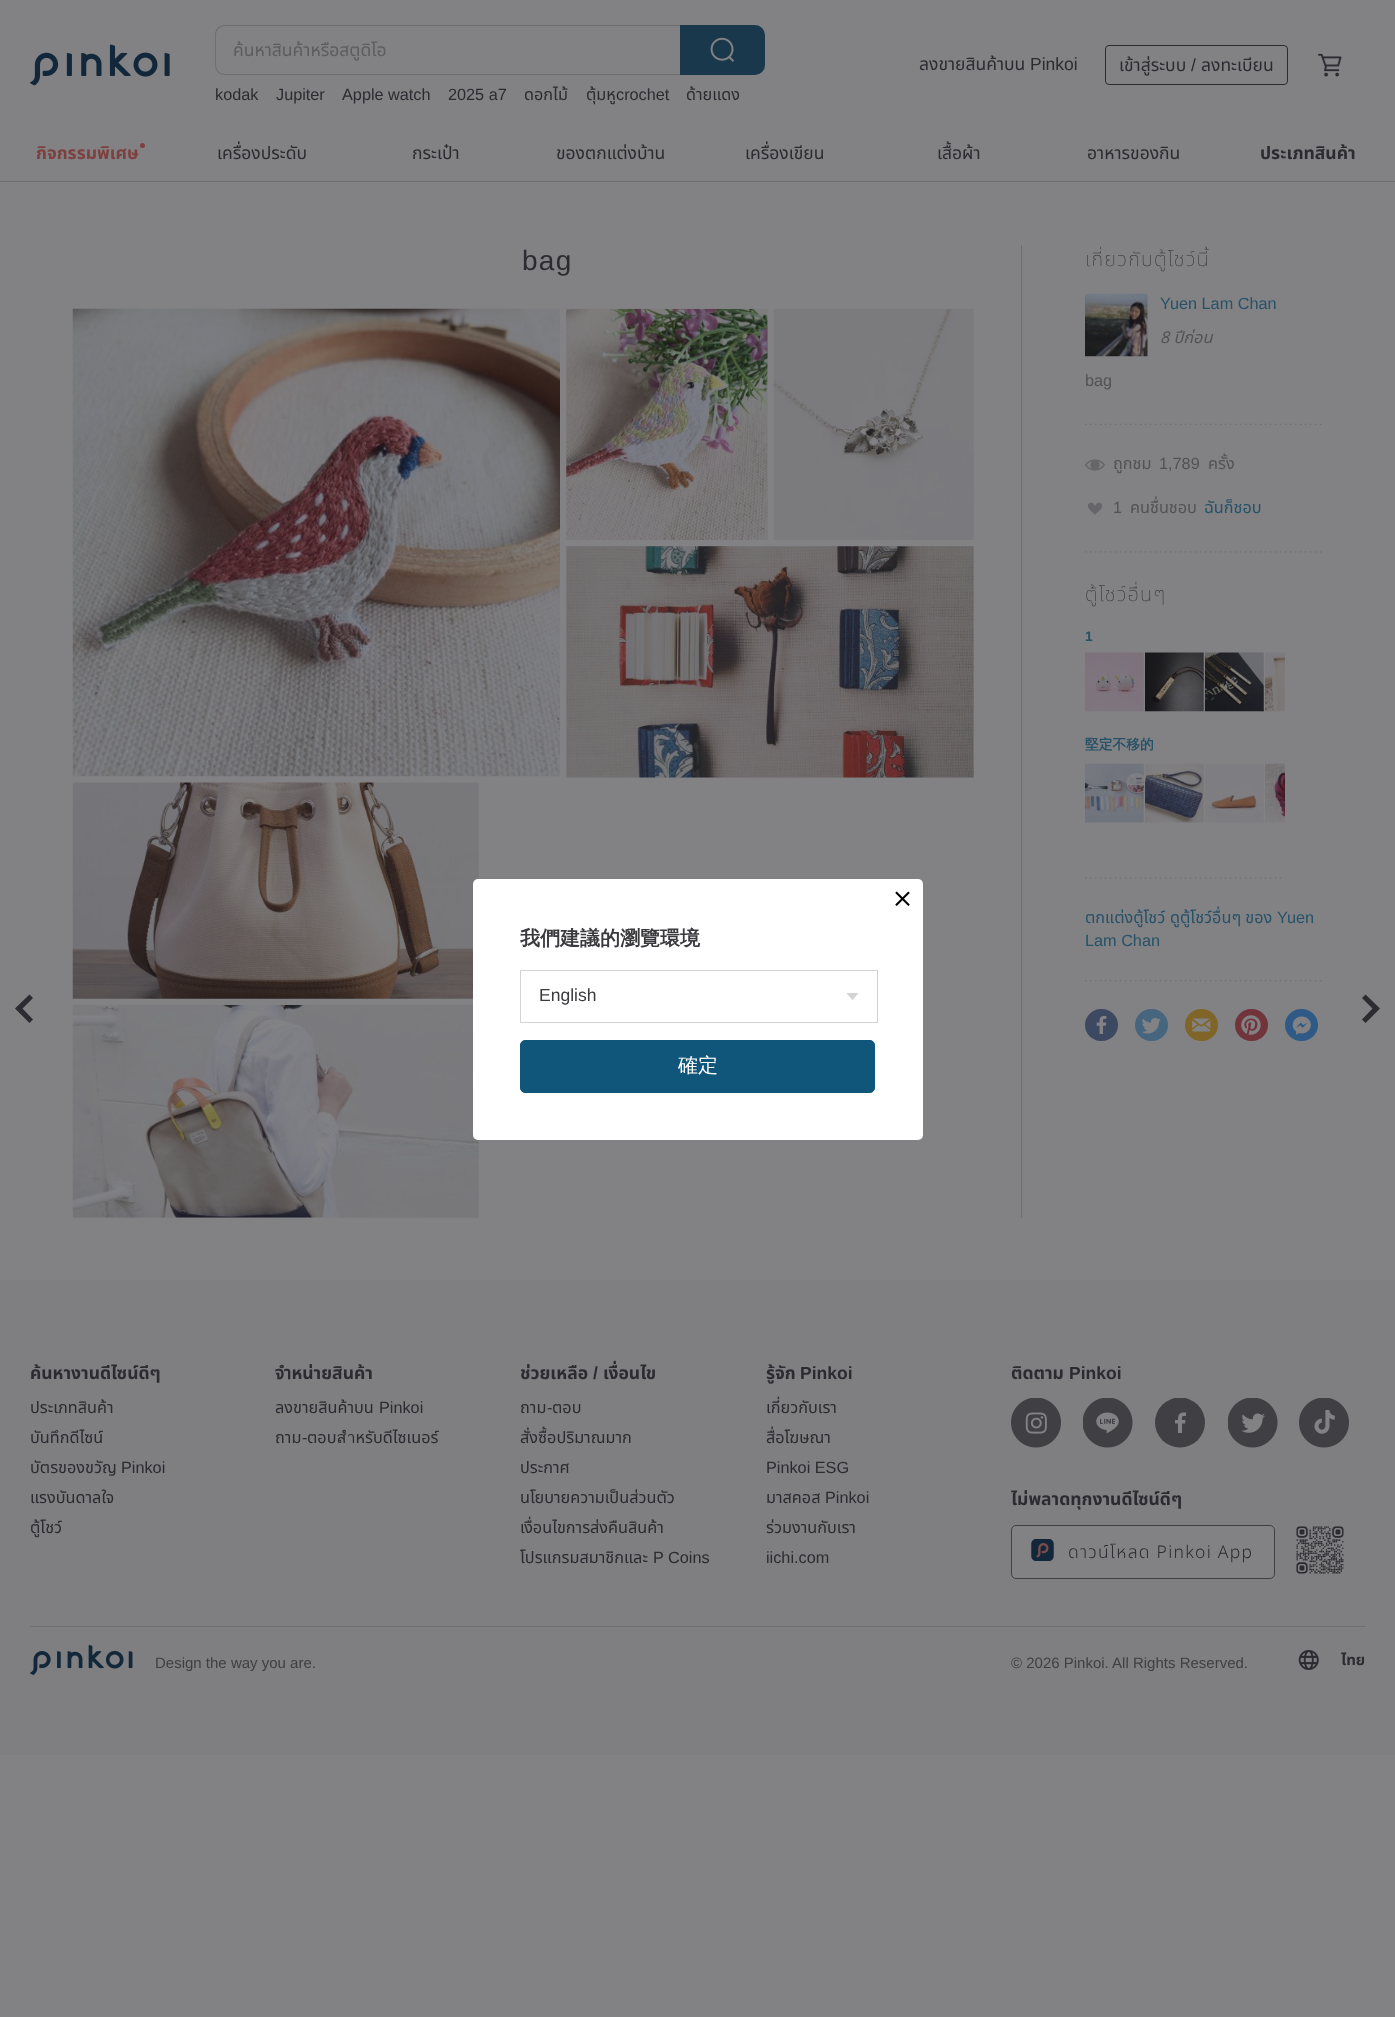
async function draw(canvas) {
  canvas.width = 1395;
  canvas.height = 2017;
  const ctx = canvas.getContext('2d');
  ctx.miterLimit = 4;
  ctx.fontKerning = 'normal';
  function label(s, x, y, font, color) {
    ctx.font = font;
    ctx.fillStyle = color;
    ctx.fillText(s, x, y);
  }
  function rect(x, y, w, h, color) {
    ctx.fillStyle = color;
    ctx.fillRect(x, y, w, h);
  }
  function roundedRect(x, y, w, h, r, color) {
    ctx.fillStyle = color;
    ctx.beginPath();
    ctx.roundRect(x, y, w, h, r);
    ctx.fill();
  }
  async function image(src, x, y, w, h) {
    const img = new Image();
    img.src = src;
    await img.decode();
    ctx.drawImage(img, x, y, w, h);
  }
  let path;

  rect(0, 0, 1395, 2017, '#828285');
  await image('assets/img1.png', 30, 44, 140, 42);
  ctx.fillStyle = '#6f6f73';
  path = new Path2D('M225 25H680V75H225C219 75 215 71 215 65V35C215 29 219 25 225 25ZM225 26H680V74H225C220 74 216 70 216 65V35C216 30 220 26 225 26Z');
  ctx.fill(path, 'evenodd');
  ctx.save();
  ctx.beginPath();
  ctx.rect(234, 38, 399, 26);
  ctx.clip();
  label('ค้นหาสินค้าหรือสตูดิโอ', 233, 56, '17.5px Noto Sans Thai', '#5c5c61');
  ctx.restore();
  ctx.fillStyle = '#19384b';
  ctx.beginPath();
  ctx.roundRect(680, 25, 85, 50, [0, 10, 10, 0]);
  ctx.fill();
  await image('assets/img2.png', 710, 37, 24, 25);
  label('kodak', 215, 100, '16.25px Liberation Sans', '#2b2b31');
  label('Jupiter', 276, 100, '16.25px Liberation Sans', '#2b2b31');
  label('Apple watch', 342, 100, '16.25px Liberation Sans', '#2b2b31');
  label('2025 a7', 448, 100, '16.25px Liberation Sans', '#2b2b31');
  label('ดอกไม้', 524, 100, '16.25px Noto Sans Thai', '#2b2b31');
  label('ตุ้มหู', 586, 100, '16.25px Noto Sans Thai', '#2b2b31');
  label('crochet', 616, 100, '16.25px Liberation Sans', '#2b2b31');
  label('ด้ายแดง', 686, 100, '16.25px Noto Sans Thai', '#2b2b31');
  label('ลงขายสินค้าบน', 919, 70, '17.5px Noto Sans Thai', '#2b2b31');
  label('Pinkoi', 1030, 70, '17.5px Liberation Sans', '#2b2b31');
  ctx.beginPath();
  ctx.roundRect(1105.5, 45.5, 182, 39, 3.5);
  ctx.strokeStyle = '#2b2b31';
  ctx.stroke();
  label('เข้าสู่ระบบ', 1119, 71, '17.5px Noto Sans Thai', '#2b2b31');
  label('/', 1191, 71, '17.5px Liberation Sans', '#2b2b31');
  label('ลงทะเบียน', 1201, 71, '17.5px Noto Sans Thai', '#2b2b31');
  await image('assets/img3.png', 1318, 53, 24, 24);
  rect(0, 181, 1395, 1, '#6f6f73');
  ctx.fillStyle = '#7c413e';
  ctx.beginPath();
  ctx.arc(142.5, 145.5, 2.5, 0, 2 * Math.PI);
  ctx.fill();
  label('กิจกรรมพิเศษ', 36, 159, 'bold 17.5px Noto Sans Thai', '#7c413e');
  label('เครื่องประดับ', 217, 159, '17.5px Noto Sans Thai', '#2b2b31');
  label('กระเป๋า', 412, 159, '17.5px Noto Sans Thai', '#2b2b31');
  label('ของตกแต่งบ้าน', 556, 159, '17.5px Noto Sans Thai', '#2b2b31');
  label('เครื่องเขียน', 745, 159, '17.5px Noto Sans Thai', '#2b2b31');
  label('เสื้อผ้า', 937, 159, '17.5px Noto Sans Thai', '#2b2b31');
  label('อาหารของกิน', 1087, 159, '17.5px Noto Sans Thai', '#2b2b31');
  label('ประเภทสินค้า', 1260, 159, 'bold 17.5px Noto Sans Thai', '#2b2b31');
  rect(1021, 245, 1, 973, '#6f6f73');
  ctx.letterSpacing = '1.25px';
  label('bag', 522, 270, '28px Liberation Sans', '#2b2b31');
  await image('assets/img4.png', 72, 308, 488, 469);
  rect(566, 309, 202, 231, '#7f7f82');
  await image('assets/img5.png', 566, 308, 202, 232);
  await image('assets/img6.png', 773, 308, 201, 232);
  rect(566, 546, 408, 232, '#7f7f82');
  await image('assets/img7.png', 566, 546, 408, 232);
  rect(73, 783, 406, 216, '#7f7f82');
  await image('assets/img8.png', 72, 782, 407, 217);
  rect(73, 1140, 406, 78, '#7f7f82');
  await image('assets/img9.png', 72, 1005, 407, 213);
  await image('assets/img10.png', 1085, 423, 237, 2);
  label('เกี่ยวกับตู้โชว์นี้', 1085, 266, '100 20px Noto Sans Thai', '#2b2b31');
  await image('assets/img11.png', 1085, 293, 63, 64);
  ctx.letterSpacing = '0px';
  label('Yuen Lam Chan', 1160, 309, '16.25px Liberation Sans', '#265166');
  label('8 ปีก่อน', 1160, 343, 'italic 16.25px Noto Sans Thai', '#525257');
  label('bag', 1085, 386, '16.25px Liberation Sans', '#525257');
  await image('assets/img12.png', 1085, 551, 237, 2);
  await image('assets/img13.png', 1085, 459, 20, 12);
  label('ถูกชม', 1113, 469, '16.25px Noto Sans Thai', '#525257');
  label('1,789', 1159, 469, '16.25px Liberation Sans', '#525257');
  label('ครั้ง', 1208, 469, '16.25px Noto Sans Thai', '#525257');
  await image('assets/img14.png', 1088, 502, 14, 13);
  label('1', 1113, 513, '16.25px Liberation Sans', '#525257');
  label('คนชื่นชอบ', 1130, 513, '16.25px Noto Sans Thai', '#525257');
  label('ฉันก็ชอบ', 1204, 513, '16.25px Noto Sans Thai', '#265166');
  await image('assets/img15.png', 1085, 877, 200, 2);
  ctx.save();
  ctx.beginPath();
  ctx.rect(1085, 580, 238, 299);
  ctx.clip();
  ctx.letterSpacing = '1.25px';
  label('ตู้โชว์อื่นๆ', 1085, 601, '100 20px Noto Sans Thai', '#2b2b31');
  ctx.restore();
  label('1', 1085, 641, 'bold 13.75px Liberation Sans', '#265166');
  await image('assets/img16.png', 1085, 652, 59, 60);
  await image('assets/img17.png', 1145, 652, 59, 60);
  await image('assets/img18.png', 1205, 652, 59, 60);
  await image('assets/img19.png', 1265, 652, 20, 60);
  label('堅定不移的', 1085, 749, 'bold 13.75px WenQuanYi Zen Hei', '#265166');
  await image('assets/img20.png', 1085, 763, 59, 60);
  await image('assets/img21.png', 1145, 763, 59, 60);
  await image('assets/img22.png', 1205, 764, 59, 59);
  await image('assets/img23.png', 1265, 763, 20, 60);
  await image('assets/img24.png', 1085, 980, 237, 2);
  label('ตกแต่งตู้โชว์', 1085, 923, '16.25px Noto Sans Thai', '#265166');
  label('ดูตู้โชว์อื่นๆ ของ', 1170, 923, '16.25px Noto Sans Thai', '#265166');
  label('Yuen', 1277, 923, '16.25px Liberation Sans', '#265166');
  label('Lam Chan', 1085, 946, '16.25px Liberation Sans', '#265166');
  roundedRect(1085, 1009, 33, 32, 16, '#3d4861');
  await image('assets/img25.png', 1096, 1015, 11, 19);
  roundedRect(1135, 1009, 33, 32, 16, '#46657f');
  await image('assets/img26.png', 1141, 1017, 20, 17);
  roundedRect(1185, 1009, 33, 32, 16, '#7f6528');
  await image('assets/img27.png', 1192, 1018, 19, 14);
  roundedRect(1235, 1009, 33, 32, 16, '#70343a');
  await image('assets/img28.png', 1241, 1015, 20, 20);
  roundedRect(1285, 1009, 33, 32, 16, '#2f5a85');
  await image('assets/img29.png', 1292, 1016, 19, 19);
  ctx.fillStyle = '#2b2b31';
  path = new Path2D('M29.5 1023L15 1008.5L29.5 994.5L33 998L22.5 1008.5L33 1019.5Z');
  ctx.fill(path, 'evenodd');
  path = new Path2D('M1365.5 1023L1362 1019.5L1372.5 1008.5L1362 998L1365.5 994.5L1380 1008.5Z');
  ctx.fill(path, 'evenodd');
  roundedRect(473, 879, 450, 261, 5, '#fff');
  await image('assets/img30.png', 895, 891, 15, 15);
  label('我們建議的瀏覽環境', 520, 945, 'bold 20px WenQuanYi Zen Hei', '#39393e');
  ctx.strokeStyle = '#d3d3d5';
  ctx.strokeRect(520.5, 970.5, 357, 52);
  ctx.save();
  ctx.beginPath();
  ctx.rect(846, 993, 13, 7);
  ctx.clip();
  ctx.fillStyle = '#d3d3d5';
  path = new Path2D('M846 992.5H859L852.5 1000Z');
  ctx.fill(path, 'evenodd');
  ctx.restore();
  label('English', 539, 1001, '17.5px Liberation Sans', '#39393e');
  ctx.fillStyle = '#10567b';
  ctx.beginPath();
  ctx.roundRect(520.5, 1040.5, 354, 52, 4.5);
  ctx.fill();
  ctx.strokeStyle = '#10567b';
  ctx.stroke();
  label('確定', 678, 1072, '500 20px WenQuanYi Zen Hei', '#fff');
  rect(0, 1280, 1395, 475, '#7f7f82');
  rect(30, 1626, 1335, 1, '#6f6f73');
  label('ค้นหางานดีไซน์ดีๆ', 30, 1379, 'bold 17.5px Noto Sans Thai', '#2b2b31');
  label('ประเภทสินค้า', 30, 1413, '16.25px Noto Sans Thai', '#2b2b31');
  label('บันทึกดีไซน์', 30, 1443, '16.25px Noto Sans Thai', '#2b2b31');
  label('บัตรของขวัญ', 30, 1473, '16.25px Noto Sans Thai', '#2b2b31');
  label('Pinkoi', 121, 1473, '16.25px Liberation Sans', '#2b2b31');
  label('แรงบันดาลใจ', 30, 1503, '16.25px Noto Sans Thai', '#2b2b31');
  label('ตู้โชว์', 30, 1533, '16.25px Noto Sans Thai', '#2b2b31');
  label('จำหน่ายสินค้า', 275, 1379, 'bold 17.5px Noto Sans Thai', '#2b2b31');
  label('ลงขายสินค้าบน', 275, 1413, '16.25px Noto Sans Thai', '#2b2b31');
  label('Pinkoi', 379, 1413, '16.25px Liberation Sans', '#2b2b31');
  label('ถาม', 275, 1443, '16.25px Noto Sans Thai', '#2b2b31');
  label('-', 302, 1443, '16.25px Liberation Sans', '#2b2b31');
  label('ตอบสำหรับดีไซเนอร์', 307, 1443, '16.25px Noto Sans Thai', '#2b2b31');
  label('ช่วยเหลือ', 520, 1379, 'bold 17.5px Noto Sans Thai', '#2b2b31');
  label('/', 593, 1379, 'bold 17.5px Liberation Sans', '#2b2b31');
  label('เงื่อนไข', 603, 1379, 'bold 17.5px Noto Sans Thai', '#2b2b31');
  label('ถาม', 520, 1413, '16.25px Noto Sans Thai', '#2b2b31');
  label('-', 547, 1413, '16.25px Liberation Sans', '#2b2b31');
  label('ตอบ', 552, 1413, '16.25px Noto Sans Thai', '#2b2b31');
  label('สั่งซื้อปริมาณมาก', 520, 1443, '16.25px Noto Sans Thai', '#2b2b31');
  label('ประกาศ', 520, 1473, '16.25px Noto Sans Thai', '#2b2b31');
  label('นโยบายความเป็นส่วนตัว', 520, 1503, '16.25px Noto Sans Thai', '#2b2b31');
  label('เงื่อนไขการส่งคืนสินค้า', 520, 1533, '16.25px Noto Sans Thai', '#2b2b31');
  label('โปรแกรมสมาชิกและ', 520, 1563, '16.25px Noto Sans Thai', '#2b2b31');
  label('P Coins', 653, 1563, '16.25px Liberation Sans', '#2b2b31');
  label('รู้จัก', 766, 1379, 'bold 17.5px Noto Sans Thai', '#2b2b31');
  label('Pinkoi', 800, 1379, 'bold 17.5px Liberation Sans', '#2b2b31');
  label('เกี่ยวกับเรา', 766, 1413, '16.25px Noto Sans Thai', '#2b2b31');
  label('สื่อโฆษณา', 766, 1443, '16.25px Noto Sans Thai', '#2b2b31');
  label('Pinkoi ESG', 766, 1473, '16.25px Liberation Sans', '#2b2b31');
  label('มาสคอส', 766, 1503, '16.25px Noto Sans Thai', '#2b2b31');
  label('Pinkoi', 825, 1503, '16.25px Liberation Sans', '#2b2b31');
  label('ร่วมงานกับเรา', 766, 1533, '16.25px Noto Sans Thai', '#2b2b31');
  label('iichi.com', 766, 1563, '16.25px Liberation Sans', '#2b2b31');
  label('ติดตาม', 1011, 1379, 'bold 17.5px Noto Sans Thai', '#2b2b31');
  label('Pinkoi', 1069, 1379, 'bold 17.5px Liberation Sans', '#2b2b31');
  await image('assets/img31.png', 1011, 1398, 50, 50);
  await image('assets/img32.png', 1083, 1398, 50, 50);
  ctx.save();
  ctx.beginPath();
  ctx.rect(1155, 1398, 50, 50);
  ctx.clip();
  ctx.fillStyle = '#3f3f44';
  ctx.beginPath();
  ctx.arc(1180, 1422.5, 25, 0, 2 * Math.PI);
  ctx.fill();
  ctx.restore();
  ctx.fillStyle = '#828285';
  path = new Path2D('M1182 1423.5H1185L1185.5 1420H1182C1182 1416 1181.5 1416 1186 1416V1412.5C1179.5 1412 1178 1414 1178 1420H1175V1423.5H1178V1433H1182Z');
  ctx.fill(path, 'evenodd');
  await image('assets/img33.png', 1228, 1398, 50, 50);
  await image('assets/img34.png', 1299, 1398, 50, 50);
  label('ไม่พลาดทุกงานดีไซน์ดีๆ', 1011, 1505, 'bold 17.5px Noto Sans Thai', '#2b2b31');
  ctx.fillStyle = '#828285';
  ctx.beginPath();
  ctx.roundRect(1011.5, 1525.5, 263, 53, 4.5);
  ctx.fill();
  ctx.strokeStyle = '#3f3f44';
  ctx.stroke();
  await image('assets/img35.png', 1031, 1539, 23, 22);
  ctx.letterSpacing = '1.25px';
  label('ดาวน์โหลด Pinkoi App', 1068, 1558, '300 17.5px Noto Sans Thai', '#2b2b31');
  await image('assets/img36.png', 1296, 1526, 48, 48);
  await image('assets/img37.png', 30, 1645, 103, 30);
  ctx.letterSpacing = '0px';
  label('Design the way you are.', 155, 1668, '15px Liberation Sans', '#3f3f44');
  label('© 2026 Pinkoi. All Rights Reserved.', 1011, 1668, '15px Liberation Sans', '#3f3f44');
  await image('assets/img38.png', 1298, 1650, 21, 20);
  label('ไทย', 1341, 1665, 'bold 15px Noto Sans Thai', '#2b2b31');
}

draw(document.querySelector('canvas'));
